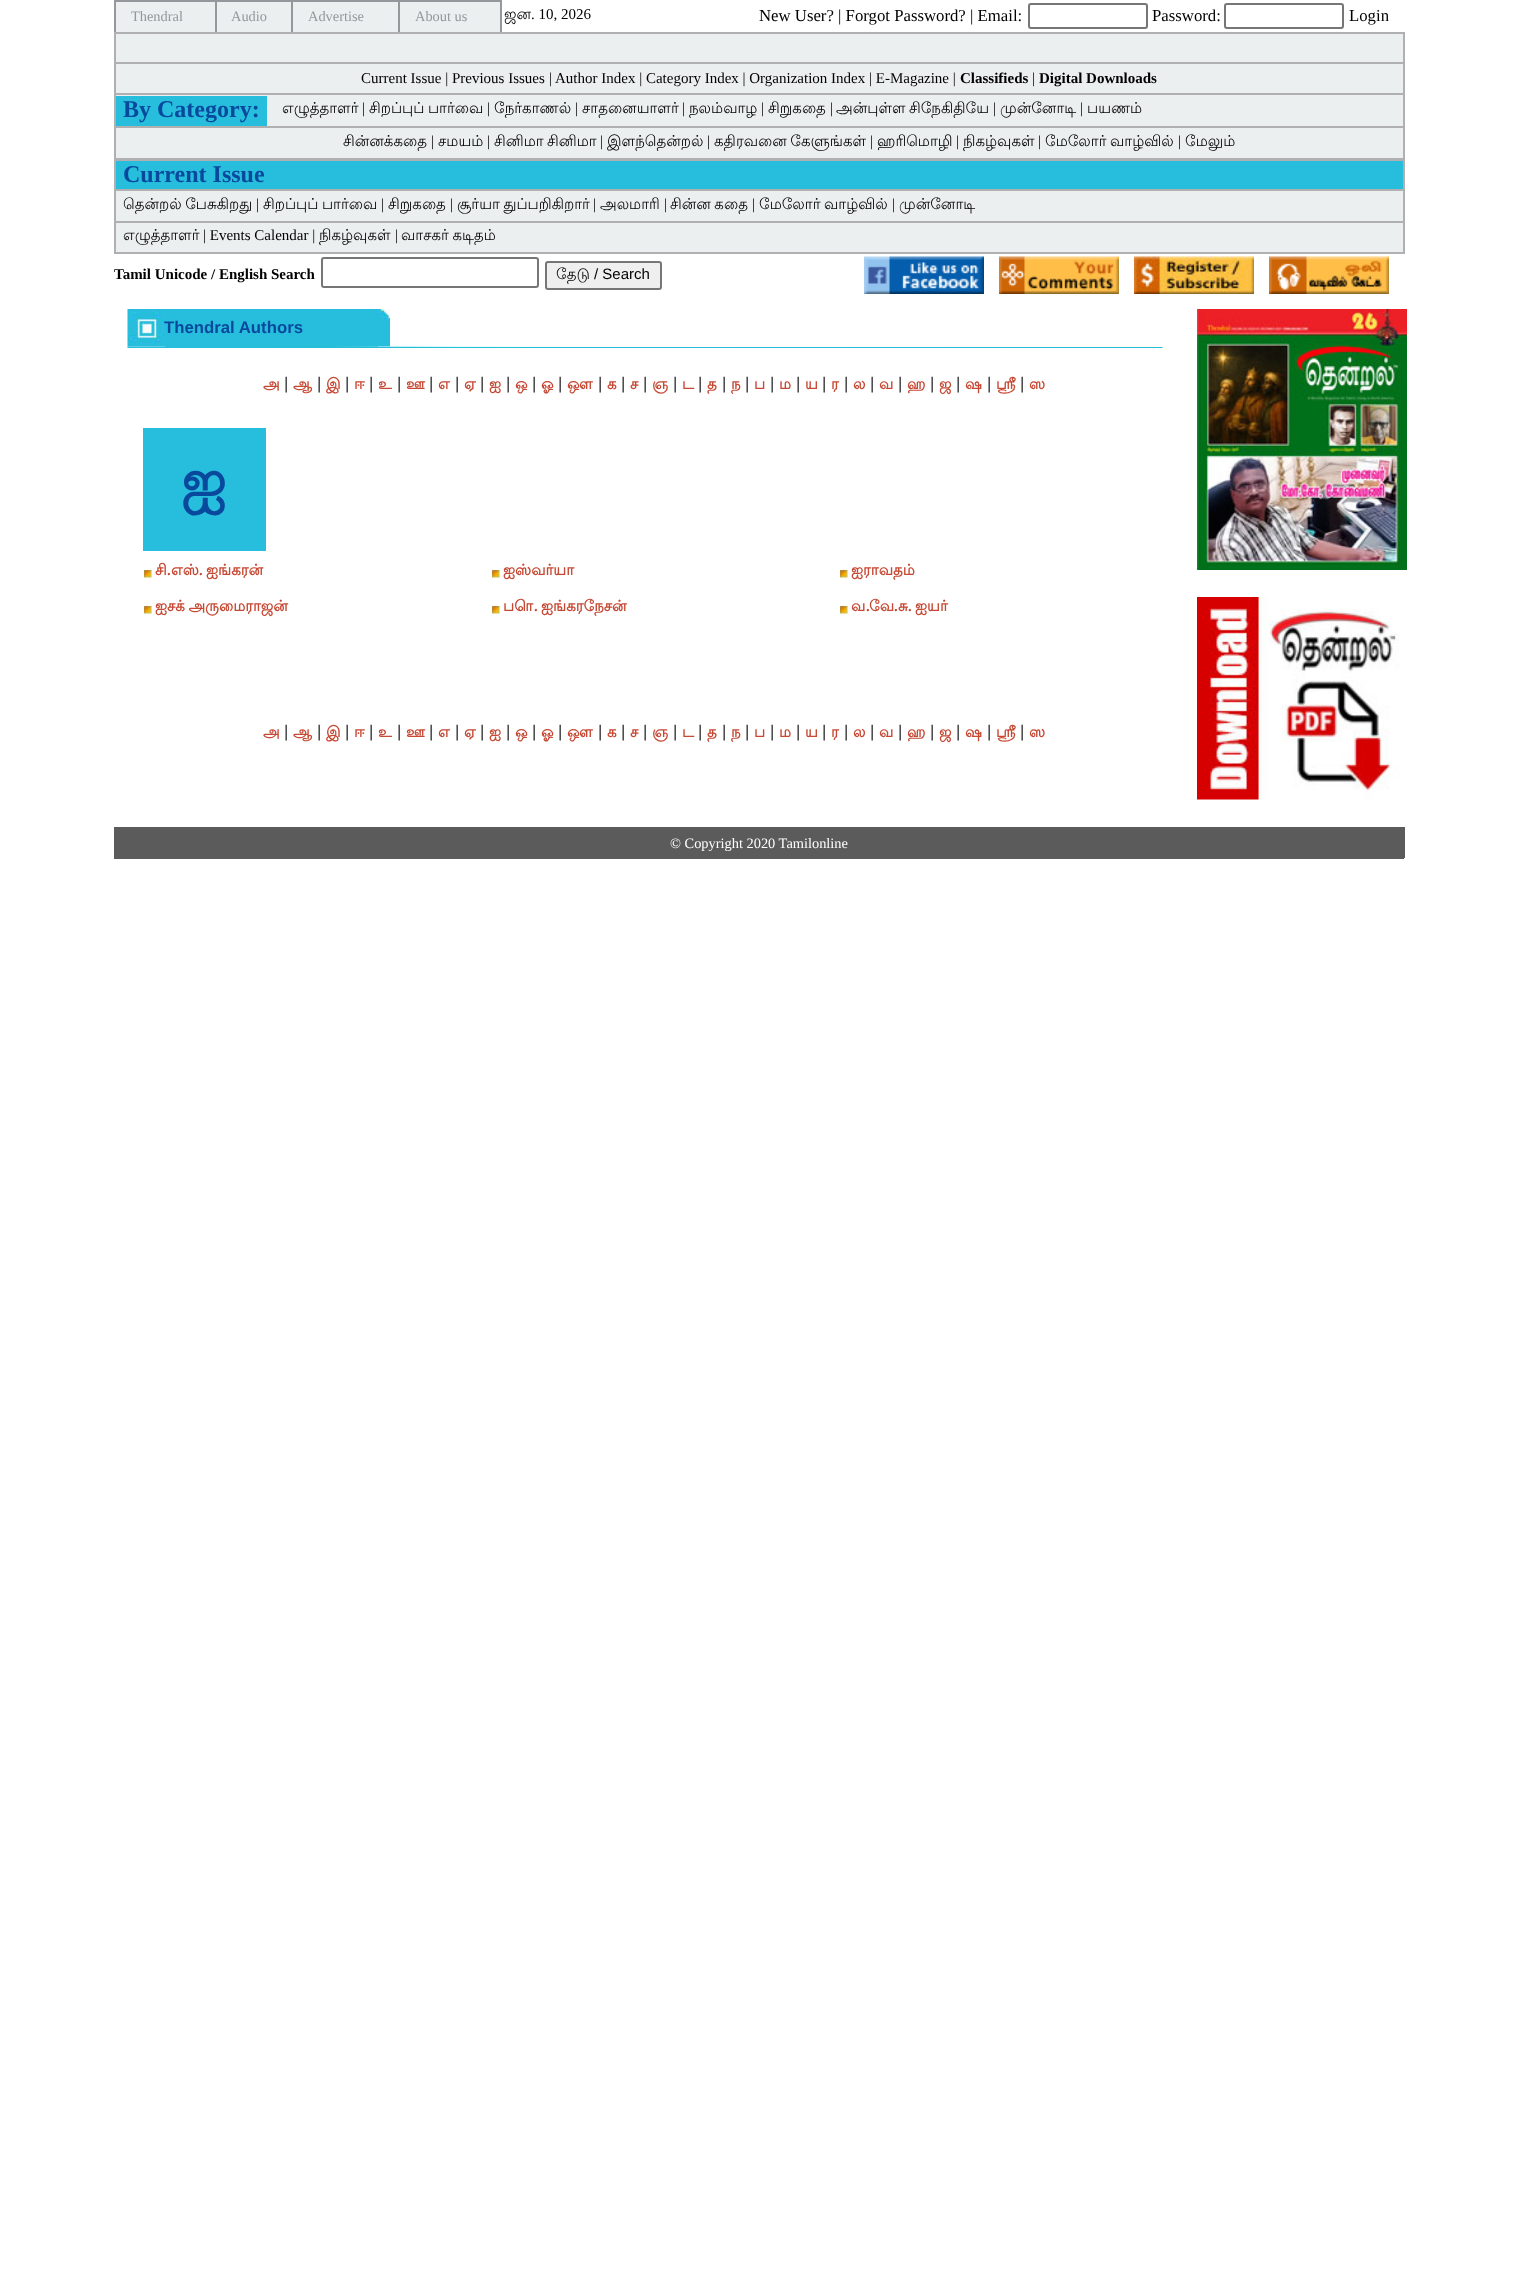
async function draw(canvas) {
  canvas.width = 1518;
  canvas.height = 2276;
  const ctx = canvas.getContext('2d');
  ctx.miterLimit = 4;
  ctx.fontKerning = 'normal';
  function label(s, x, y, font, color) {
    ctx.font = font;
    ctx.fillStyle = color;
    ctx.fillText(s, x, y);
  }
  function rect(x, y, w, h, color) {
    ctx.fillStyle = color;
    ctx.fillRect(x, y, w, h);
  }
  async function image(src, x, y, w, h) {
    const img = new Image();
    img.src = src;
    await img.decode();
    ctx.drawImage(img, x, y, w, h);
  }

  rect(0, 0, 1518, 2276, '#fff');
  rect(116, 2, 384, 30, '#ebeff0');
  rect(114, 0, 387, 2, '#94979b');
  rect(215, 0, 2, 32, '#94979b');
  rect(114, 0, 2, 32, '#94979b');
  label('Thendral', 131, 21, '14.4px Liberation Serif', '#94979b');
  rect(291, 0, 2, 32, '#94979b');
  label('Audio', 231, 21, '14.4px Liberation Serif', '#94979b');
  rect(398, 0, 2, 32, '#94979b');
  label('Advertise', 308, 21, '14.4px Liberation Serif', '#94979b');
  rect(500, 0, 2, 32, '#94979b');
  label('About us', 415, 21, '14.4px Liberation Serif', '#94979b');
  label('ஜன', 504, 19, '15px Lohit Tamil', '#000');
  label('. 10, 2026', 531, 19, '15px Liberation Serif', '#000');
  label('New User? | Forgot Password? | Email:', 759, 21, '16.75px Liberation Serif', '#000');
  ctx.beginPath();
  ctx.roundRect(1029, 4, 118, 24, 2);
  ctx.strokeStyle = '#767676';
  ctx.lineWidth = 2;
  ctx.stroke();
  label('Password:', 1152, 21, '16.75px Liberation Serif', '#000');
  ctx.beginPath();
  ctx.roundRect(1225, 4, 118, 24, 2);
  ctx.stroke();
  label('Login', 1349, 21, '16.75px Liberation Serif', '#000');
  rect(116, 34, 1287, 124, '#ebeff0');
  rect(114, 32, 1290, 2, '#b0b0b0');
  rect(116, 62, 1288, 2, '#b0b0b0');
  rect(116, 93, 1288, 2, '#b0b0b0');
  rect(116, 126, 1288, 2, '#b0b0b0');
  rect(1403, 32, 2, 127, '#b0b0b0');
  rect(114, 158, 1290, 3, '#b0b0b0');
  rect(114, 32, 2, 127, '#b0b0b0');
  label('Current Issue | Previous Issues', 361, 83, '15px Liberation Serif', '#000');
  label('|', 549, 83, '15px Liberation Serif', '#000');
  label('Author Index | Category Index | Organization Index | E-Magazine |', 555, 83, '15px Liberation Serif', '#000');
  label('Classifieds', 960, 83, 'bold 15px Liberation Serif', '#000');
  label('|', 1032, 83, '15px Liberation Serif', '#000');
  label('Digital Downloads', 1039, 83, 'bold 15px Liberation Serif', '#000');
  rect(116, 96, 151, 30, '#27bedd');
  label('By Category:', 123, 117, 'bold 24px Liberation Serif', '#08499d');
  label('எழுத்தாளர்', 282, 113, '15px Lohit Tamil', '#000');
  label('|', 362, 113, '15px Liberation Serif', '#000');
  ctx.wordSpacing = '-1px';
  label('சிறப்புப் பார்வை', 369, 113, '15px Lohit Tamil', '#000');
  ctx.wordSpacing = '0px';
  label('|', 487, 113, '15px Liberation Serif', '#000');
  label('நேர்காணல்', 494, 113, '15px Lohit Tamil', '#000');
  label('|', 575, 113, '15px Liberation Serif', '#000');
  label('சாதனையாளர்', 582, 113, '15px Lohit Tamil', '#000');
  label('|', 682, 113, '15px Liberation Serif', '#000');
  label('நலம்வாழ', 689, 113, '15px Lohit Tamil', '#000');
  label('|', 761, 113, '15px Liberation Serif', '#000');
  label('சிறுகதை', 768, 113, '15px Lohit Tamil', '#000');
  label('|', 830, 113, '15px Liberation Serif', '#000');
  ctx.wordSpacing = '-1px';
  label('அன்புள்ள சிநேகிதியே', 836, 113, '15px Lohit Tamil', '#000');
  ctx.wordSpacing = '0px';
  label('|', 993, 113, '15px Liberation Serif', '#000');
  label('முன்னோடி', 1000, 113, '15px Lohit Tamil', '#000');
  label('|', 1080, 113, '15px Liberation Serif', '#000');
  label('பயணம்', 1087, 113, '15px Lohit Tamil', '#000');
  label('சின்னக்கதை', 343, 146, '15px Lohit Tamil', '#000');
  label('|', 431, 146, '15px Liberation Serif', '#000');
  label('சமயம்', 438, 146, '15px Lohit Tamil', '#000');
  label('|', 487, 146, '15px Liberation Serif', '#000');
  ctx.wordSpacing = '-1px';
  label('சினிமா சினிமா', 494, 146, '15px Lohit Tamil', '#000');
  ctx.wordSpacing = '0px';
  label('|', 600, 146, '15px Liberation Serif', '#000');
  label('இளந்தென்றல்', 607, 146, '15px Lohit Tamil', '#000');
  label('|', 707, 146, '15px Liberation Serif', '#000');
  ctx.wordSpacing = '-1px';
  label('கதிரவனை கேளுங்கள்', 714, 146, '15px Lohit Tamil', '#000');
  ctx.wordSpacing = '0px';
  label('|', 870, 146, '15px Liberation Serif', '#000');
  label('ஹரிமொழி', 877, 146, '15px Lohit Tamil', '#000');
  label('|', 956, 146, '15px Liberation Serif', '#000');
  label('நிகழ்வுகள்', 963, 146, '15px Lohit Tamil', '#000');
  label('|', 1038, 146, '15px Liberation Serif', '#000');
  ctx.wordSpacing = '-1px';
  label('மேலோர் வாழ்வில்', 1045, 146, '15px Lohit Tamil', '#000');
  ctx.wordSpacing = '0px';
  label('|', 1178, 146, '15px Liberation Serif', '#000');
  label('மேலும்', 1185, 146, '15px Lohit Tamil', '#000');
  rect(116, 191, 1287, 61, '#ebeff0');
  rect(116, 189, 1288, 2, '#b0b0b0');
  rect(116, 221, 1288, 2, '#b0b0b0');
  rect(1403, 159, 2, 95, '#b0b0b0');
  rect(114, 252, 1290, 2, '#b0b0b0');
  rect(114, 159, 2, 95, '#b0b0b0');
  rect(116, 161, 1287, 28, '#27bedd');
  label('Current Issue', 123, 182, 'bold 24px Liberation Serif', '#08499d');
  ctx.wordSpacing = '-1px';
  label('தென்றல் பேசுகிறது', 123, 209, '15px Lohit Tamil', '#000');
  ctx.wordSpacing = '0px';
  label('|', 256, 209, '15px Liberation Serif', '#000');
  ctx.wordSpacing = '-1px';
  label('சிறப்புப் பார்வை', 263, 209, '15px Lohit Tamil', '#000');
  ctx.wordSpacing = '0px';
  label('|', 381, 209, '15px Liberation Serif', '#000');
  label('சிறுகதை', 388, 209, '15px Lohit Tamil', '#000');
  label('|', 450, 209, '15px Liberation Serif', '#000');
  ctx.wordSpacing = '-1px';
  label('சூர்யா துப்பறிகிறார்', 457, 209, '15px Lohit Tamil', '#000');
  ctx.wordSpacing = '0px';
  label('|', 593, 209, '15px Liberation Serif', '#000');
  label('அலமாரி', 600, 209, '15px Lohit Tamil', '#000');
  label('|', 664, 209, '15px Liberation Serif', '#000');
  ctx.wordSpacing = '-1px';
  label('சின்ன கதை', 670, 209, '15px Lohit Tamil', '#000');
  ctx.wordSpacing = '0px';
  label('|', 752, 209, '15px Liberation Serif', '#000');
  ctx.wordSpacing = '-1px';
  label('மேலோர் வாழ்வில்', 759, 209, '15px Lohit Tamil', '#000');
  ctx.wordSpacing = '0px';
  label('|', 892, 209, '15px Liberation Serif', '#000');
  label('முன்னோடி', 899, 209, '15px Lohit Tamil', '#000');
  label('எழுத்தாளர்', 123, 240, '15px Lohit Tamil', '#000');
  label('| Events Calendar |', 203, 240, '15px Liberation Serif', '#000');
  label('நிகழ்வுகள்', 319, 240, '15px Lohit Tamil', '#000');
  label('|', 395, 240, '15px Liberation Serif', '#000');
  ctx.wordSpacing = '-1px';
  label('வாசகர் கடிதம்', 401, 240, '15px Lohit Tamil', '#000');
  ctx.wordSpacing = '0px';
  label('Tamil Unicode / English Search', 114, 279, 'bold 15px Liberation Serif', '#000');
  ctx.beginPath();
  ctx.roundRect(322, 258, 216, 29, 2);
  ctx.stroke();
  ctx.fillStyle = '#efefef';
  ctx.beginPath();
  ctx.roundRect(546, 262, 115, 27, 2);
  ctx.fill();
  ctx.stroke();
  label('தேடு', 556, 279, '15px Lohit Tamil', '#000');
  label('/ Search', 594, 279, '15px Liberation Sans', '#000');
  await image('assets/img1.png', 864, 256, 120, 38);
  await image('assets/img2.png', 999, 256, 120, 38);
  await image('assets/img3.png', 1134, 256, 120, 38);
  await image('assets/img4.png', 1269, 256, 120, 38);
  await image('assets/img5.png', 127, 309, 38, 38);
  rect(165, 309, 213, 38, '#27bedd');
  label('Thendral Authors', 164, 333, 'bold 16.75px Liberation Sans', '#08499d');
  await image('assets/img6.png', 378, 309, 12, 38);
  await image('assets/img7.png', 127, 346, 1036, 2);
  label('அ', 263, 389, 'bold 15px Lohit Tamil', '#c64934');
  label('|', 284, 389, '16.75px Liberation Sans', '#333');
  label('ஆ', 293, 389, 'bold 15px Lohit Tamil', '#c64934');
  label('|', 317, 389, '16.75px Liberation Sans', '#333');
  label('இ', 326, 389, 'bold 15px Lohit Tamil', '#c64934');
  label('|', 345, 389, '16.75px Liberation Sans', '#333');
  label('ஈ', 354, 389, 'bold 15px Lohit Tamil', '#c64934');
  label('|', 369, 389, '16.75px Liberation Sans', '#333');
  label('உ', 378, 389, 'bold 15px Lohit Tamil', '#c64934');
  label('|', 397, 389, '16.75px Liberation Sans', '#333');
  label('ஊ', 406, 389, 'bold 15px Lohit Tamil', '#c64934');
  label('|', 429, 389, '16.75px Liberation Sans', '#333');
  label('எ', 438, 389, 'bold 15px Lohit Tamil', '#c64934');
  label('|', 455, 389, '16.75px Liberation Sans', '#333');
  label('ஏ', 464, 389, 'bold 15px Lohit Tamil', '#c64934');
  label('|', 480, 389, '16.75px Liberation Sans', '#333');
  label('ஐ', 489, 389, 'bold 15px Lohit Tamil', '#c64934');
  label('|', 506, 389, '16.75px Liberation Sans', '#333');
  label('ஒ', 515, 389, 'bold 15px Lohit Tamil', '#c64934');
  label('|', 532, 389, '16.75px Liberation Sans', '#333');
  label('ஓ', 541, 389, 'bold 15px Lohit Tamil', '#c64934');
  label('|', 558, 389, '16.75px Liberation Sans', '#333');
  label('ஔ', 567, 389, 'bold 15px Lohit Tamil', '#c64934');
  label('|', 598, 389, '16.75px Liberation Sans', '#333');
  label('க', 607, 389, 'bold 15px Lohit Tamil', '#c64934');
  label('|', 621, 389, '16.75px Liberation Sans', '#333');
  label('ச', 630, 389, 'bold 15px Lohit Tamil', '#c64934');
  label('|', 643, 389, '16.75px Liberation Sans', '#333');
  label('ஞ', 652, 389, 'bold 15px Lohit Tamil', '#c64934');
  label('|', 673, 389, '16.75px Liberation Sans', '#333');
  label('ட', 682, 389, 'bold 15px Lohit Tamil', '#c64934');
  label('|', 698, 389, '16.75px Liberation Sans', '#333');
  label('த', 707, 389, 'bold 15px Lohit Tamil', '#c64934');
  label('|', 722, 389, '16.75px Liberation Sans', '#333');
  label('ந', 731, 389, 'bold 15px Lohit Tamil', '#c64934');
  label('|', 745, 389, '16.75px Liberation Sans', '#333');
  label('ப', 754, 389, 'bold 15px Lohit Tamil', '#c64934');
  label('|', 770, 389, '16.75px Liberation Sans', '#333');
  label('ம', 779, 389, 'bold 15px Lohit Tamil', '#c64934');
  label('|', 796, 389, '16.75px Liberation Sans', '#333');
  label('ய', 805, 389, 'bold 15px Lohit Tamil', '#c64934');
  label('|', 822, 389, '16.75px Liberation Sans', '#333');
  label('ர', 831, 389, 'bold 15px Lohit Tamil', '#c64934');
  label('|', 844, 389, '16.75px Liberation Sans', '#333');
  label('ல', 853, 389, 'bold 15px Lohit Tamil', '#c64934');
  label('|', 870, 389, '16.75px Liberation Sans', '#333');
  label('வ', 879, 389, 'bold 15px Lohit Tamil', '#c64934');
  label('|', 898, 389, '16.75px Liberation Sans', '#333');
  label('ஹ', 907, 389, 'bold 15px Lohit Tamil', '#c64934');
  label('|', 930, 389, '16.75px Liberation Sans', '#333');
  label('ஜ', 939, 389, 'bold 15px Lohit Tamil', '#c64934');
  label('|', 956, 389, '16.75px Liberation Sans', '#333');
  label('ஷ', 965, 389, 'bold 15px Lohit Tamil', '#c64934');
  label('|', 987, 389, '16.75px Liberation Sans', '#333');
  label('ஸ்ரீ', 996, 389, 'bold 15px Lohit Tamil', '#c64934');
  label('|', 1020, 389, '16.75px Liberation Sans', '#333');
  label('ஸ', 1029, 389, 'bold 15px Lohit Tamil', '#c64934');
  rect(143, 428, 123, 123, '#27bedd');
  label('ஐ', 181, 500, 'bold 56px Lohit Tamil', '#08499d');
  await image('assets/img8.png', 144, 570, 8, 8);
  label('சி', 155, 575, 'bold 15px Lohit Tamil', '#c64934');
  label('.', 167, 575, 'bold 15px Liberation Serif', '#c64934');
  label('எஸ்', 171, 575, 'bold 15px Lohit Tamil', '#c64934');
  label('.', 199, 575, 'bold 15px Liberation Serif', '#c64934');
  label('ஐங்கரன்', 206, 575, 'bold 15px Lohit Tamil', '#c64934');
  await image('assets/img9.png', 492, 570, 8, 8);
  label('ஐஸ்வர்யா', 503, 575, 'bold 15px Lohit Tamil', '#c64934');
  await image('assets/img8.png', 840, 570, 8, 8);
  label('ஐராவதம்', 851, 575, 'bold 15px Lohit Tamil', '#c64934');
  await image('assets/img8.png', 144, 606, 8, 8);
  ctx.wordSpacing = '-1px';
  label('ஐசக் அருமைராஜன்', 155, 611, 'bold 15px Lohit Tamil', '#c64934');
  await image('assets/img9.png', 492, 606, 8, 8);
  ctx.wordSpacing = '0px';
  label('பொ', 503, 611, 'bold 15px Lohit Tamil', '#c64934');
  label('.', 534, 611, 'bold 15px Liberation Serif', '#c64934');
  label('ஐங்கரநேசன்', 541, 611, 'bold 15px Lohit Tamil', '#c64934');
  await image('assets/img8.png', 840, 606, 8, 8);
  label('வ', 851, 611, 'bold 15px Lohit Tamil', '#c64934');
  label('.', 866, 611, 'bold 15px Liberation Serif', '#c64934');
  label('வே', 869, 611, 'bold 15px Lohit Tamil', '#c64934');
  label('.', 894, 611, 'bold 15px Liberation Serif', '#c64934');
  label('சு', 898, 611, 'bold 15px Lohit Tamil', '#c64934');
  label('.', 908, 611, 'bold 15px Liberation Serif', '#c64934');
  label('ஐயர்', 915, 611, 'bold 15px Lohit Tamil', '#c64934');
  label('அ', 263, 737, 'bold 15px Lohit Tamil', '#c64934');
  label('|', 284, 737, '16.75px Liberation Sans', '#333');
  label('ஆ', 293, 737, 'bold 15px Lohit Tamil', '#c64934');
  label('|', 317, 737, '16.75px Liberation Sans', '#333');
  label('இ', 326, 737, 'bold 15px Lohit Tamil', '#c64934');
  label('|', 345, 737, '16.75px Liberation Sans', '#333');
  label('ஈ', 354, 737, 'bold 15px Lohit Tamil', '#c64934');
  label('|', 369, 737, '16.75px Liberation Sans', '#333');
  label('உ', 378, 737, 'bold 15px Lohit Tamil', '#c64934');
  label('|', 397, 737, '16.75px Liberation Sans', '#333');
  label('ஊ', 406, 737, 'bold 15px Lohit Tamil', '#c64934');
  label('|', 429, 737, '16.75px Liberation Sans', '#333');
  label('எ', 438, 737, 'bold 15px Lohit Tamil', '#c64934');
  label('|', 455, 737, '16.75px Liberation Sans', '#333');
  label('ஏ', 464, 737, 'bold 15px Lohit Tamil', '#c64934');
  label('|', 480, 737, '16.75px Liberation Sans', '#333');
  label('ஐ', 489, 737, 'bold 15px Lohit Tamil', '#c64934');
  label('|', 506, 737, '16.75px Liberation Sans', '#333');
  label('ஒ', 515, 737, 'bold 15px Lohit Tamil', '#c64934');
  label('|', 532, 737, '16.75px Liberation Sans', '#333');
  label('ஓ', 541, 737, 'bold 15px Lohit Tamil', '#c64934');
  label('|', 558, 737, '16.75px Liberation Sans', '#333');
  label('ஔ', 567, 737, 'bold 15px Lohit Tamil', '#c64934');
  label('|', 598, 737, '16.75px Liberation Sans', '#333');
  label('க', 607, 737, 'bold 15px Lohit Tamil', '#c64934');
  label('|', 621, 737, '16.75px Liberation Sans', '#333');
  label('ச', 630, 737, 'bold 15px Lohit Tamil', '#c64934');
  label('|', 643, 737, '16.75px Liberation Sans', '#333');
  label('ஞ', 652, 737, 'bold 15px Lohit Tamil', '#c64934');
  label('|', 673, 737, '16.75px Liberation Sans', '#333');
  label('ட', 682, 737, 'bold 15px Lohit Tamil', '#c64934');
  label('|', 698, 737, '16.75px Liberation Sans', '#333');
  label('த', 707, 737, 'bold 15px Lohit Tamil', '#c64934');
  label('|', 722, 737, '16.75px Liberation Sans', '#333');
  label('ந', 731, 737, 'bold 15px Lohit Tamil', '#c64934');
  label('|', 745, 737, '16.75px Liberation Sans', '#333');
  label('ப', 754, 737, 'bold 15px Lohit Tamil', '#c64934');
  label('|', 770, 737, '16.75px Liberation Sans', '#333');
  label('ம', 779, 737, 'bold 15px Lohit Tamil', '#c64934');
  label('|', 796, 737, '16.75px Liberation Sans', '#333');
  label('ய', 805, 737, 'bold 15px Lohit Tamil', '#c64934');
  label('|', 822, 737, '16.75px Liberation Sans', '#333');
  label('ர', 831, 737, 'bold 15px Lohit Tamil', '#c64934');
  label('|', 844, 737, '16.75px Liberation Sans', '#333');
  label('ல', 853, 737, 'bold 15px Lohit Tamil', '#c64934');
  label('|', 870, 737, '16.75px Liberation Sans', '#333');
  label('வ', 879, 737, 'bold 15px Lohit Tamil', '#c64934');
  label('|', 898, 737, '16.75px Liberation Sans', '#333');
  label('ஹ', 907, 737, 'bold 15px Lohit Tamil', '#c64934');
  label('|', 930, 737, '16.75px Liberation Sans', '#333');
  label('ஜ', 939, 737, 'bold 15px Lohit Tamil', '#c64934');
  label('|', 956, 737, '16.75px Liberation Sans', '#333');
  label('ஷ', 965, 737, 'bold 15px Lohit Tamil', '#c64934');
  label('|', 987, 737, '16.75px Liberation Sans', '#333');
  label('ஸ்ரீ', 996, 737, 'bold 15px Lohit Tamil', '#c64934');
  label('|', 1020, 737, '16.75px Liberation Sans', '#333');
  label('ஸ', 1029, 737, 'bold 15px Lohit Tamil', '#c64934');
  await image('assets/img10.png', 1197, 309, 210, 261);
  await image('assets/img11.png', 1197, 597, 202, 203);
  rect(114, 827, 1289, 30, '#5b5b5b');
  rect(1403, 827, 2, 31, '#5b5b5b');
  rect(114, 857, 1290, 2, '#5b5b5b');
  label('© Copyright 2020 Tamilonline', 670, 848, '14.4px Liberation Serif', '#fff');
}

draw(document.querySelector('canvas'));
